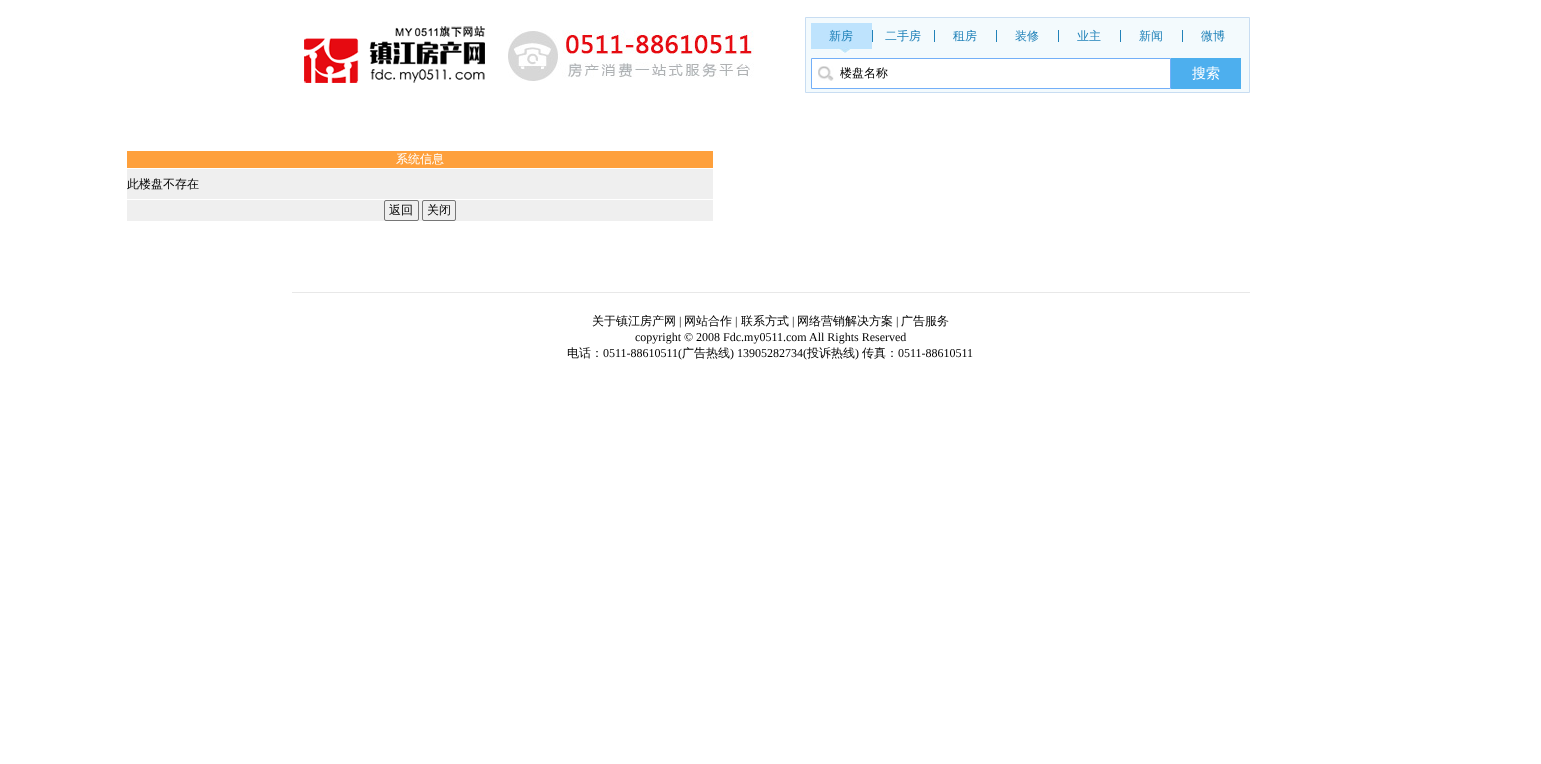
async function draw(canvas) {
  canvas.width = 1541;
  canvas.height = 764;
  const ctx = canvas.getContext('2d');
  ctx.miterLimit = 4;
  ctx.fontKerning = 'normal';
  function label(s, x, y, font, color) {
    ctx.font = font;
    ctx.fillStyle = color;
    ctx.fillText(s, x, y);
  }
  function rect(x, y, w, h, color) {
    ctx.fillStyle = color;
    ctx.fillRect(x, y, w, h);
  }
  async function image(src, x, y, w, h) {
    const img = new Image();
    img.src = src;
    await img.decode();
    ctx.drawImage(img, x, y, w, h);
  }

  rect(0, 0, 1541, 764, '#fff');
  await image('assets/img1.png', 304, 26, 181, 57);
  await image('assets/img2.png', 508, 30, 246, 51);
  ctx.fillStyle = '#f3fafd';
  ctx.beginPath();
  ctx.rect(805.5, 17.5, 444, 75);
  ctx.fill();
  ctx.strokeStyle = '#c8ddf2';
  ctx.stroke();
  await image('assets/img3.png', 811, 23, 61, 30);
  label('新房', 829, 40, '500 12px WenQuanYi Zen Hei', '#2182b9');
  rect(872, 30, 1, 12, '#2182b9');
  label('二手房', 885, 40, '500 12px WenQuanYi Zen Hei', '#2182b9');
  rect(934, 30, 1, 12, '#2182b9');
  label('租房', 953, 40, '500 12px WenQuanYi Zen Hei', '#2182b9');
  rect(996, 30, 1, 12, '#2182b9');
  label('装修', 1015, 40, '500 12px WenQuanYi Zen Hei', '#2182b9');
  rect(1058, 30, 1, 12, '#2182b9');
  label('业主', 1077, 40, '500 12px WenQuanYi Zen Hei', '#2182b9');
  rect(1120, 30, 1, 12, '#2182b9');
  label('新闻', 1139, 40, '500 12px WenQuanYi Zen Hei', '#2182b9');
  rect(1182, 30, 1, 12, '#2182b9');
  label('微博', 1201, 40, '500 12px WenQuanYi Zen Hei', '#2182b9');
  ctx.fillStyle = '#fff';
  ctx.beginPath();
  ctx.rect(811.5, 58.5, 359, 30);
  ctx.fill();
  ctx.strokeStyle = '#73aff8';
  ctx.stroke();
  await image('assets/img4.png', 818, 66, 16, 15);
  label('楼盘名称', 840, 77, '500 12px WenQuanYi Zen Hei', '#000');
  rect(1171, 58, 70, 31, '#4dafee');
  label('搜索', 1192, 78, '500 14px WenQuanYi Zen Hei', '#fff');
  rect(127, 151, 586, 17, '#fea03c');
  label('系统信息', 396, 163, '500 12px WenQuanYi Zen Hei', '#fff');
  rect(127, 169, 586, 30, '#efefef');
  label('此楼盘不存在', 127, 188, '500 12px WenQuanYi Zen Hei', '#000');
  rect(127, 200, 586, 21, '#efefef');
  ctx.beginPath();
  ctx.roundRect(384.5, 200.5, 34, 20, 1.5);
  ctx.strokeStyle = '#767676';
  ctx.stroke();
  label('返回', 389, 214, '500 12px WenQuanYi Zen Hei', '#000');
  ctx.beginPath();
  ctx.roundRect(422.5, 200.5, 33, 20, 1.5);
  ctx.stroke();
  label('关闭', 427, 214, '500 12px WenQuanYi Zen Hei', '#000');
  rect(292, 292, 958, 1, '#e8e8e8');
  label('关于镇江房产网', 592, 325, '500 12px WenQuanYi Zen Hei', '#000');
  label('|', 679, 325, '12px Liberation Serif', '#000');
  label('网站合作', 684, 325, '500 12px WenQuanYi Zen Hei', '#000');
  label('|', 735, 325, '12px Liberation Serif', '#000');
  label('联系方式', 741, 325, '500 12px WenQuanYi Zen Hei', '#000');
  label('|', 792, 325, '12px Liberation Serif', '#000');
  label('网络营销解决方案', 797, 325, '500 12px WenQuanYi Zen Hei', '#000');
  label('|', 896, 325, '12px Liberation Serif', '#000');
  label('广告服务', 901, 325, '500 12px WenQuanYi Zen Hei', '#000');
  label('copyright © 2008 Fdc.my0511.com All Rights Reserved', 635, 341, '12px Liberation Serif', '#000');
  label('电话：', 567, 357, '500 12px WenQuanYi Zen Hei', '#000');
  label('0511-88610511(', 603, 357, '12px Liberation Serif', '#000');
  label('广告热线', 682, 357, '500 12px WenQuanYi Zen Hei', '#000');
  label(') 13905282734(', 730, 357, '12px Liberation Serif', '#000');
  label('投诉热线', 807, 357, '500 12px WenQuanYi Zen Hei', '#000');
  label(')', 855, 357, '12px Liberation Serif', '#000');
  label('传真：', 862, 357, '500 12px WenQuanYi Zen Hei', '#000');
  label('0511-88610511', 898, 357, '12px Liberation Serif', '#000');
}

draw(document.querySelector('canvas'));
